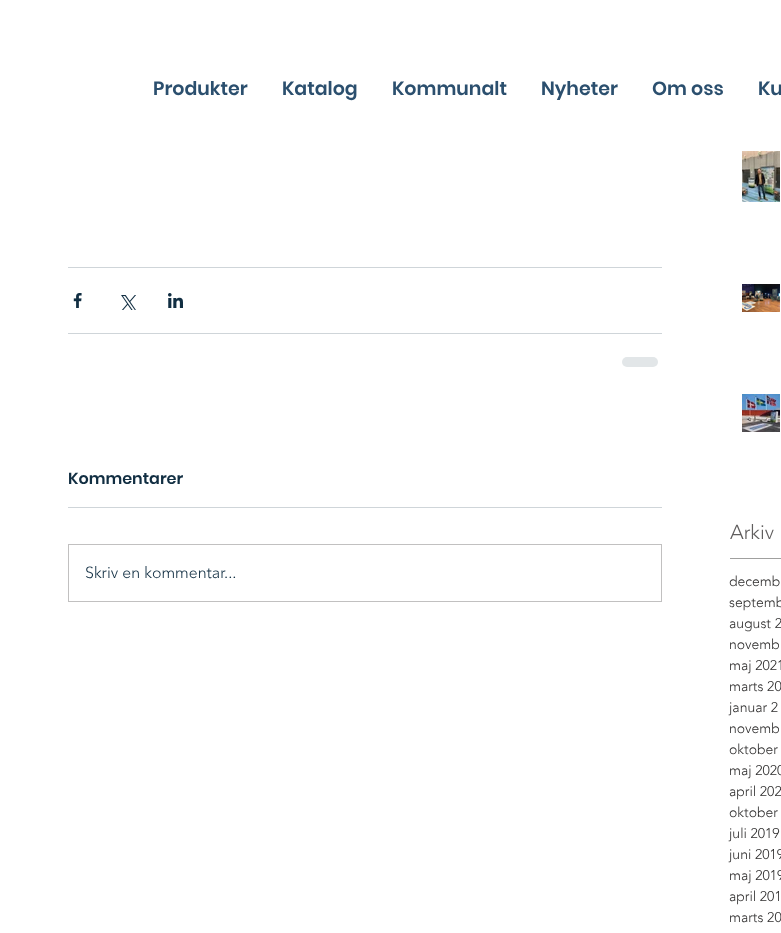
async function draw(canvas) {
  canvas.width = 781;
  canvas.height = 933;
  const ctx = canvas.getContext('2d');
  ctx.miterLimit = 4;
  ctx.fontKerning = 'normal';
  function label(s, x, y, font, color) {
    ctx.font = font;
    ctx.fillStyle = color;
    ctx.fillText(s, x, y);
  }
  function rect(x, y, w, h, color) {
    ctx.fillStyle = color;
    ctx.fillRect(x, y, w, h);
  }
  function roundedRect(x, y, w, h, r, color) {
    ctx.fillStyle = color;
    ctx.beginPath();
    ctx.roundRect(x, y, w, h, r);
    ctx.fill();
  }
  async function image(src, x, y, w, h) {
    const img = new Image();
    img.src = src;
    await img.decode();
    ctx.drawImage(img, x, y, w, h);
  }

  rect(0, 0, 781, 933, '#fff');
  label('Produkter', 153, 95, '600 19px Poppins', '#2b4f6e');
  label('Katalog', 282, 95, '600 19px Poppins', '#2b4f6e');
  label('Kommunalt', 392, 95, '600 19px Poppins', '#2b4f6e');
  label('Nyheter', 541, 95, '600 19px Poppins', '#2b4f6e');
  label('Om oss', 652, 95, '600 19px Poppins', '#2b4f6e');
  label('Ku', 758, 95, '600 19px Poppins', '#2b4f6e');
  await image('assets/img1.png', 742, 151, 38, 51);
  await image('assets/img2.png', 742, 284, 38, 28);
  await image('assets/img3.png', 742, 394, 38, 38);
  rect(68, 267, 594, 1, '#cfd5d9');
  await image('assets/img4.png', 73, 293, 9, 15);
  await image('assets/img5.png', 121, 295, 15, 15);
  await image('assets/img6.png', 168, 293, 15, 15);
  rect(68, 333, 594, 1, '#cfd5d9');
  roundedRect(622, 357, 36, 10, 5, '#e2e6e8');
  label('Kommentarer', 68, 484, '600 16px Poppins', '#112e42');
  rect(68, 507, 594, 1, '#cfd5d9');
  ctx.strokeStyle = '#c1c0c0';
  ctx.strokeRect(68.5, 544.5, 593, 57);
  label('Skriv en kommentar...', 85, 578, '300 16px "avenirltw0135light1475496"', '#112e42');
  label('Arkiv', 730, 539, '300 20px "avenirltw0135light1475496"', '#605e5e');
  rect(730, 558, 51, 1, '#a0a09f');
  label('decemb', 729, 586, '300 14px "avenirltw0135light1475496"', '#2f2e2e');
  label('septemb', 729, 607, '300 14px "avenirltw0135light1475496"', '#2f2e2e');
  label('august 2', 729, 628, '300 14px "avenirltw0135light1475496"', '#2f2e2e');
  label('novemb', 729, 649, '300 14px "avenirltw0135light1475496"', '#2f2e2e');
  label('maj 2021', 729, 670, '300 14px "avenirltw0135light1475496"', '#2f2e2e');
  label('marts 20', 729, 691, '300 14px "avenirltw0135light1475496"', '#2f2e2e');
  label('januar 2', 729, 712, '300 14px "avenirltw0135light1475496"', '#2f2e2e');
  label('novemb', 729, 733, '300 14px "avenirltw0135light1475496"', '#2f2e2e');
  label('oktober', 729, 754, '300 14px "avenirltw0135light1475496"', '#2f2e2e');
  label('maj 2020', 729, 775, '300 14px "avenirltw0135light1475496"', '#2f2e2e');
  label('april 202', 729, 796, '300 14px "avenirltw0135light1475496"', '#2f2e2e');
  label('oktober', 729, 817, '300 14px "avenirltw0135light1475496"', '#2f2e2e');
  label('juli 2019', 729, 838, '300 14px "avenirltw0135light1475496"', '#2f2e2e');
  label('juni 2019', 729, 859, '300 14px "avenirltw0135light1475496"', '#2f2e2e');
  label('maj 2019', 729, 880, '300 14px "avenirltw0135light1475496"', '#2f2e2e');
  label('april 201', 729, 901, '300 14px "avenirltw0135light1475496"', '#2f2e2e');
  label('marts 20', 729, 922, '300 14px "avenirltw0135light1475496"', '#2f2e2e');
}

draw(document.querySelector('canvas'));
